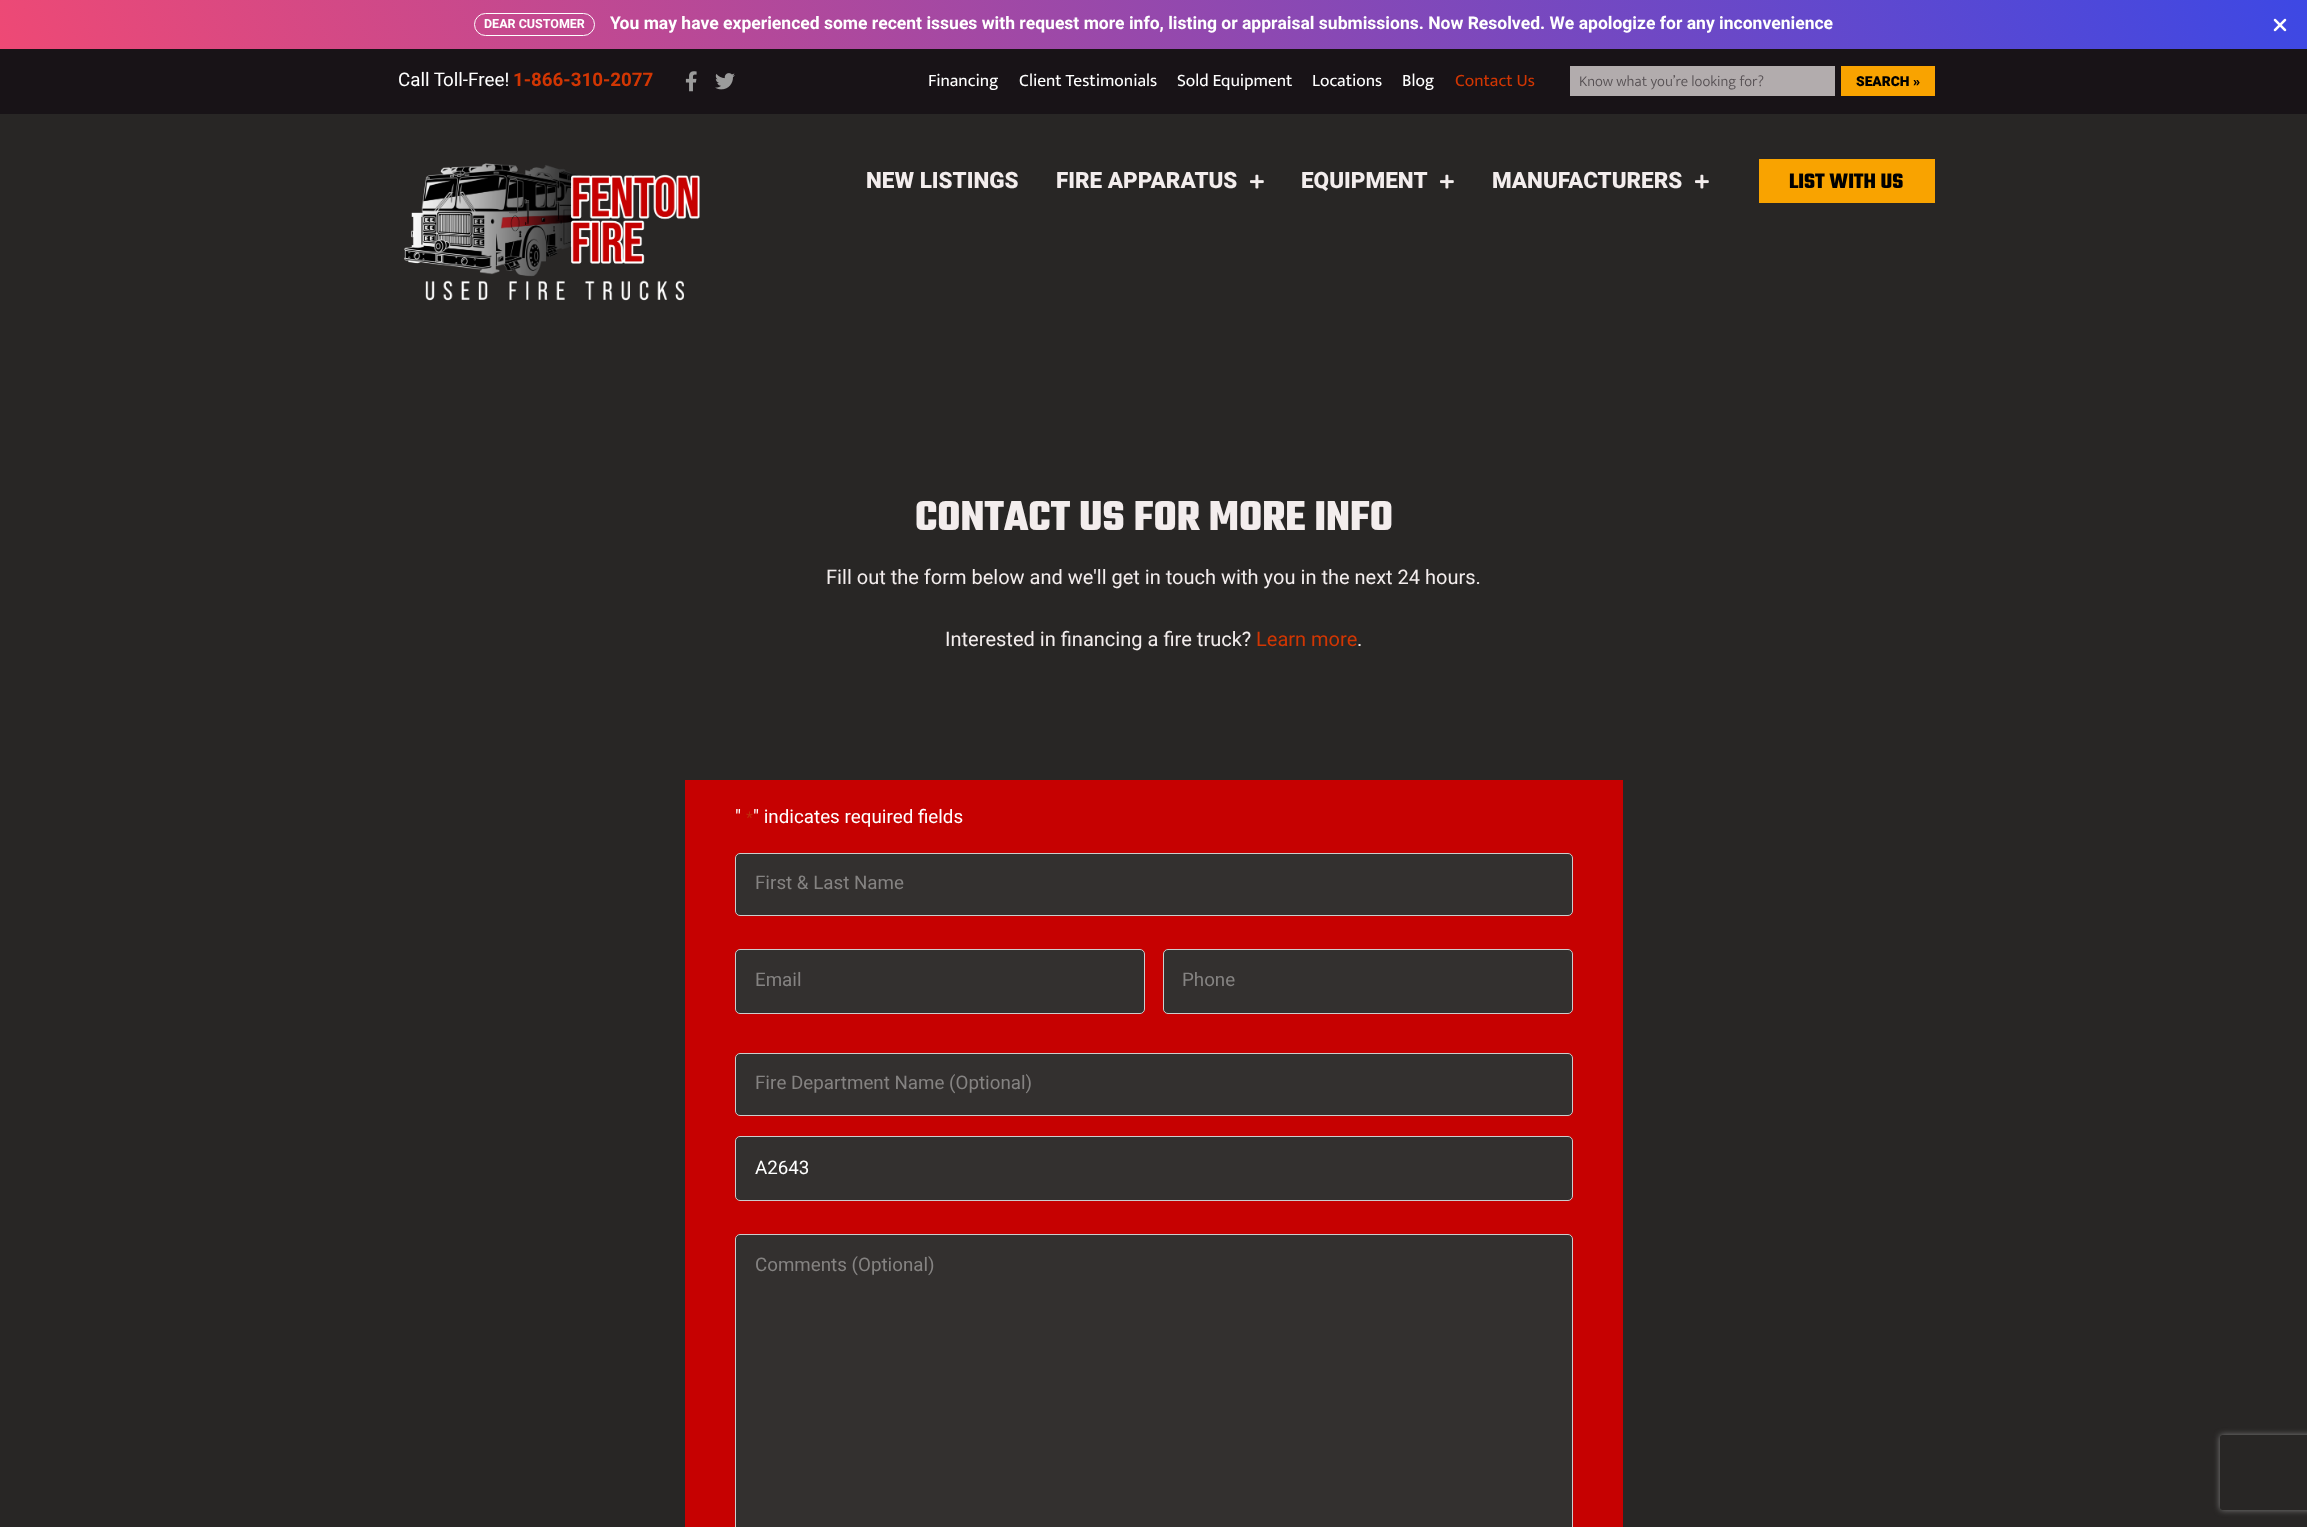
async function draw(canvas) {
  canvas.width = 2307;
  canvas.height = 1527;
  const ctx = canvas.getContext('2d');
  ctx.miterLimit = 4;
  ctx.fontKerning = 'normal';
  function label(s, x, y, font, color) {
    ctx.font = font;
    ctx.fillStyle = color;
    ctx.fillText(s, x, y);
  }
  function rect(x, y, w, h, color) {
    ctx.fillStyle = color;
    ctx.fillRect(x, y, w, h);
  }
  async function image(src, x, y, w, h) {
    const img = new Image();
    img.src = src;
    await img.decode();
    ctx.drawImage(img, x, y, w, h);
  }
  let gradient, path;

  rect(0, 0, 2307, 1527, '#282625');
  gradient = ctx.createLinearGradient(2154, -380, 153, 429);
  gradient.addColorStop(0, '#3d48e4');
  gradient.addColorStop(1, '#ee4975');
  ctx.fillStyle = gradient;
  ctx.fillRect(0, 0, 2307, 49);
  ctx.beginPath();
  ctx.roundRect(474.5, 13.5, 120, 22, 11);
  ctx.strokeStyle = '#fff';
  ctx.stroke();
  label('DEAR CUSTOMER', 484, 28, 'bold 12.5px Heebo', '#fff');
  label('You may have experienced some recent issues with request more info, listing or appraisal submissions. Now Resolved. We apologize for any inconvenience', 610, 29, 'bold 17.5px Heebo', '#fff');
  await image('assets/img1.png', 2273, 18, 14, 14);
  rect(0, 49, 2307, 65, '#181317');
  label('Call Toll-Free!', 398, 86, '18.75px Heebo', '#fff');
  label('1-866-310-2077', 513, 86, 'bold 18.75px Heebo', '#d13603');
  await image('assets/img2.png', 685, 71, 12, 21);
  await image('assets/img3.png', 715, 73, 20, 17);
  label('Financing', 928, 86, '17.5px Mukta', '#fff');
  label('Client Testimonials', 1019, 86, '17.5px Mukta', '#fff');
  label('Sold Equipment', 1177, 86, '17.5px Mukta', '#fff');
  label('Locations', 1312, 86, '17.5px Mukta', '#fff');
  label('Blog', 1402, 86, '17.5px Mukta', '#fff');
  label('Contact Us', 1455, 86, '17.5px Mukta', '#d13603');
  rect(1570, 66, 265, 30, '#b2acad');
  label('Know what you’re looking for?', 1579, 86, '300 15px Mukta', '#565053');
  rect(1841, 66, 94, 30, '#f9a300');
  label('SEARCH »', 1856, 86, '900 13.75px Heebo', '#000');
  await image('assets/img4.png', 404, 163, 296, 138);
  label('NEW LISTINGS', 866, 188, '800 22.5px Heebo', '#f3eded');
  label('FIRE APPARATUS', 1056, 188, '800 22.5px Heebo', '#f3eded');
  await image('assets/img5.png', 1250, 174, 14, 15);
  label('EQUIPMENT', 1301, 188, '800 22.5px Heebo', '#f3eded');
  await image('assets/img5.png', 1440, 174, 14, 15);
  label('MANUFACTURERS', 1492, 188, '800 22.5px Heebo', '#f3eded');
  await image('assets/img5.png', 1695, 174, 14, 15);
  rect(1759, 159, 176, 44, '#f9a300');
  label('LIST WITH US', 1789, 188, 'bold 22.5px Teko', '#000');
  label('CONTACT US FOR MORE INFO', 915, 530, 'bold 45px Teko', '#f3eded');
  label('Fill out the form below and we\'ll get in touch with you in the next 24 hours.', 826, 584, '20px Heebo', '#f3eded');
  label('Interested in financing a fire truck?', 945, 646, '20px Heebo', '#f3eded');
  label('Learn more', 1256, 646, '20px Heebo', '#d13603');
  label('.', 1357, 646, '20px Heebo', '#f3eded');
  rect(685, 780, 938, 747, '#c60101');
  label('"', 735, 823, '18.75px Heebo', '#fff');
  label('*', 746, 823, '16px Heebo', '#c02b0a');
  label('" indicates required fields', 753, 823, '18.75px Heebo', '#fff');
  ctx.fillStyle = '#33302f';
  ctx.beginPath();
  ctx.roundRect(735.5, 853.5, 837, 62, 4.5);
  ctx.fill();
  ctx.strokeStyle = '#ccc';
  ctx.stroke();
  label('First & Last Name', 755, 889, '18.75px Heebo', '#858382');
  ctx.fillStyle = '#33302f';
  ctx.beginPath();
  ctx.roundRect(735.5, 949.5, 409, 64, 4.5);
  ctx.fill();
  ctx.stroke();
  label('Email', 755, 986, '18.75px Heebo', '#858382');
  ctx.fillStyle = '#33302f';
  ctx.beginPath();
  ctx.roundRect(1163.5, 949.5, 409, 64, 4.5);
  ctx.fill();
  ctx.stroke();
  label('Phone', 1182, 986, '18.75px Heebo', '#858382');
  ctx.fillStyle = '#33302f';
  ctx.beginPath();
  ctx.roundRect(735.5, 1053.5, 837, 62, 4.5);
  ctx.fill();
  ctx.stroke();
  label('Fire Department Name (Optional)', 755, 1089, '18.75px Heebo', '#858382');
  ctx.fillStyle = '#33302f';
  ctx.beginPath();
  ctx.roundRect(735.5, 1136.5, 837, 64, 4.5);
  ctx.fill();
  ctx.stroke();
  label('A2643', 755, 1174, '18.75px Heebo', '#fff');
  ctx.fillStyle = '#33302f';
  ctx.beginPath();
  ctx.roundRect(735.5, 1234.5, 837, 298, 4.5);
  ctx.fill();
  ctx.stroke();
  label('Comments (Optional)', 755, 1271, '18.75px Heebo', '#858382');
  ctx.save();
  path = new Path2D('M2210 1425H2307V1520H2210ZM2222.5 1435H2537.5C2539 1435 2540 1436 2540 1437.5V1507.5C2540 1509 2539 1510 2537.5 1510H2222.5C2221 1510 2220 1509 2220 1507.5V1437.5C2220 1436 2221 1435 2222.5 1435Z');
  ctx.clip(path, 'evenodd');
  ctx.fillStyle = '#808080';
  ctx.filter = 'blur(3px)';
  ctx.beginPath();
  ctx.roundRect(2220, 1435, 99, 75, 2.5);
  ctx.fill();
  ctx.filter = 'none';
  ctx.restore();
}

draw(document.querySelector('canvas'));
